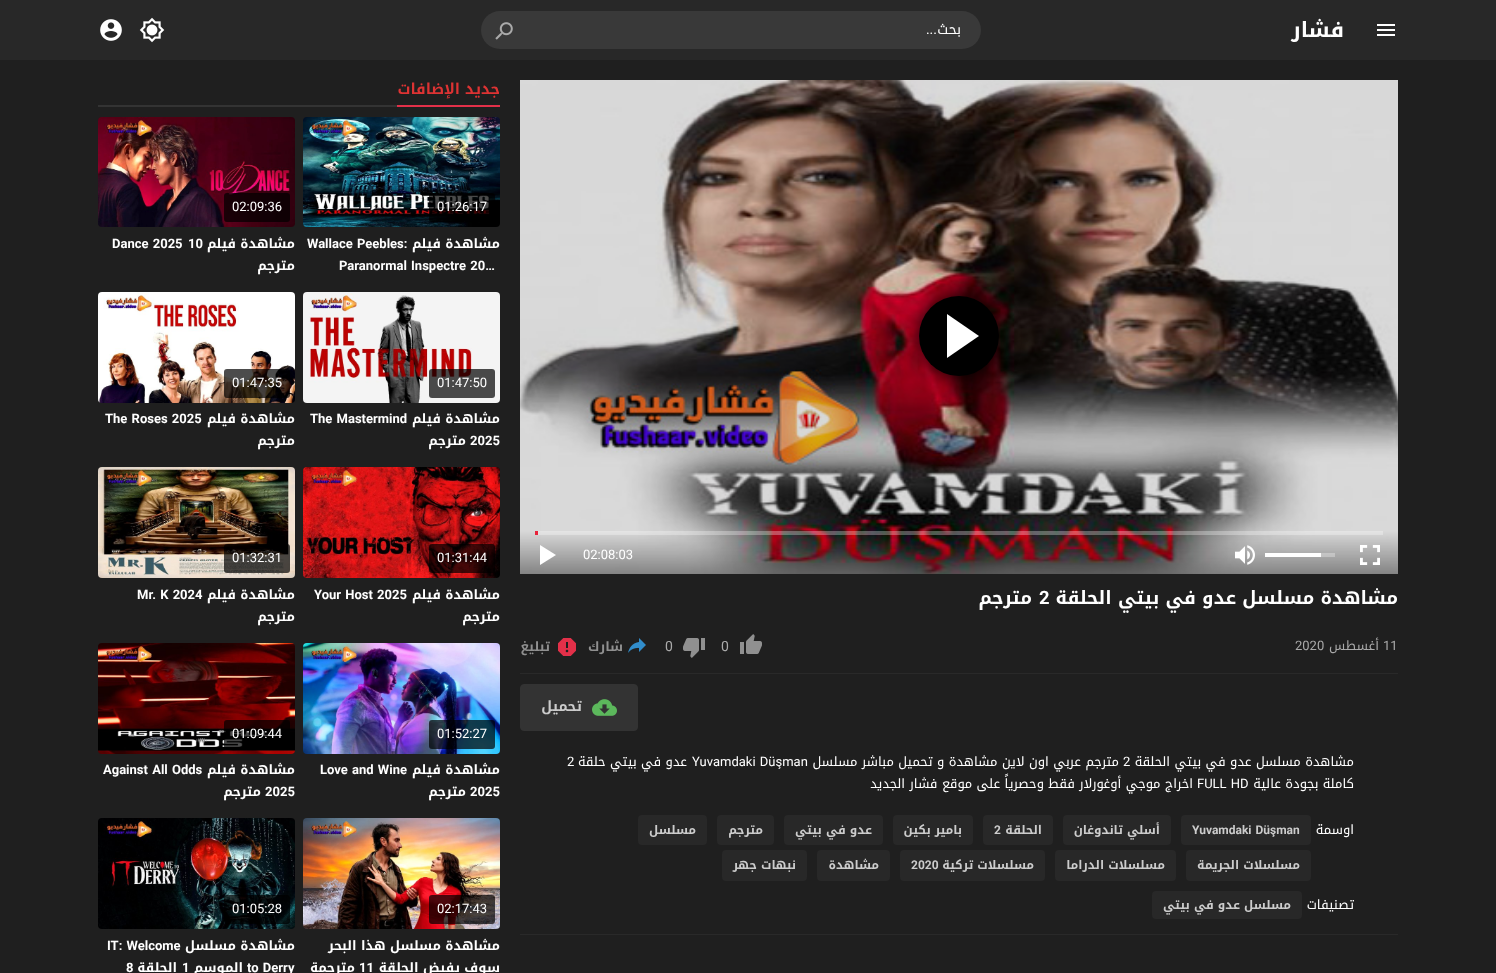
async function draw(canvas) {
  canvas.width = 1496;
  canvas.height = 973;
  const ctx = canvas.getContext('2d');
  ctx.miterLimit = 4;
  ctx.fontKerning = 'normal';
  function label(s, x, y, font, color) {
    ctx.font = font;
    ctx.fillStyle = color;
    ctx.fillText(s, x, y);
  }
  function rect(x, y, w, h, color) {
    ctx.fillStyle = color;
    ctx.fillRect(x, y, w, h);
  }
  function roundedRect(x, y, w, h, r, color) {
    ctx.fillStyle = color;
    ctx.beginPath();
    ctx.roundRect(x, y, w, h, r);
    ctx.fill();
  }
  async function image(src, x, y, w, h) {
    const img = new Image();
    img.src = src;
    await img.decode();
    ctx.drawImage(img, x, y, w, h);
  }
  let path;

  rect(0, 0, 1496, 973, '#1f1f1f');
  rect(0, 0, 1496, 60, '#282828');
  await image('assets/img1.png', 1377, 24, 18, 12);
  ctx.direction = 'rtl';
  label('فشار', 1344, 37, 'bold 21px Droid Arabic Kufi', '#fff');
  ctx.fillStyle = '#393939';
  ctx.beginPath();
  ctx.roundRect(531, 11, 450, 38, [0, 19, 19, 0]);
  ctx.fill();
  label('بحث', 961, 34, '14px Droid Arabic Kufi', '#fff');
  label('...', 937, 34, '14px Roboto', '#fff');
  ctx.fillStyle = '#393939';
  ctx.beginPath();
  ctx.roundRect(481, 11, 50, 38, [19, 0, 0, 19]);
  ctx.fill();
  await image('assets/img2.png', 495, 22, 18, 18);
  await image('assets/img3.png', 139, 17, 26, 26);
  await image('assets/img4.png', 100, 19, 22, 22);
  await image('assets/img5.png', 520, 80, 878, 494);
  ctx.fillStyle = '#000';
  ctx.filter = 'blur(10px)';
  ctx.beginPath();
  ctx.roundRect(919, 296, 80, 80, 40);
  ctx.fill();
  ctx.filter = 'none';
  ctx.beginPath();
  ctx.arc(959, 336, 40, 0, 2 * Math.PI);
  ctx.fill();
  ctx.fillStyle = '#fff';
  path = new Path2D('M947 358V314L979 336Z');
  ctx.fill(path);
  rect(535, 531, 848, 4, '#ffffff4d');
  rect(535, 531, 3, 4, '#e82239');
  await image('assets/img6.png', 1360, 545, 20, 20);
  rect(1321, 553, 14, 4, '#ffffff4d');
  rect(1265, 553, 56, 4, '#fff');
  await image('assets/img7.png', 1235, 545, 20, 20);
  ctx.direction = 'ltr';
  label('02:08:03', 583, 559, '13px Roboto', '#fff');
  path = new Path2D('M540 545V565L556 555Z');
  ctx.fill(path);
  ctx.direction = 'rtl';
  label('مشاهدة مسلسل عدو في بيتي الحلقة', 1398, 604, 'bold 18.4px Droid Arabic Kufi', '#fff');
  ctx.direction = 'ltr';
  label('2', 1039, 604, 'bold 18.4px Roboto', '#fff');
  ctx.direction = 'rtl';
  label('مترجم', 1032, 604, 'bold 18.4px Droid Arabic Kufi', '#fff');
  rect(520, 673, 878, 1, '#292929');
  ctx.direction = 'ltr';
  label('11', 1383, 650, '13px Roboto', '#aaa');
  ctx.direction = 'rtl';
  label('أغسطس', 1379, 650, '13px Droid Arabic Kufi', '#aaa');
  ctx.direction = 'ltr';
  label('2020', 1295, 650, '13px Roboto', '#aaa');
  await image('assets/img8.png', 740, 634, 22, 20);
  label('0', 721, 651, '14px Roboto', '#aaa');
  await image('assets/img9.png', 683, 638, 22, 20);
  label('0', 665, 651, '14px Roboto', '#aaa');
  await image('assets/img10.png', 628, 638, 18, 15);
  ctx.direction = 'rtl';
  label('شارك', 623, 651, 'bold 13px Droid Arabic Kufi', '#909090');
  await image('assets/img11.png', 558, 638, 18, 18);
  label('تبليغ', 550, 651, 'bold 13px Droid Arabic Kufi', '#909090');
  ctx.fillStyle = '#333';
  ctx.beginPath();
  ctx.roundRect(520.5, 684.5, 117, 46, 3.5);
  ctx.fill();
  ctx.strokeStyle = '#333';
  ctx.stroke();
  await image('assets/img12.png', 592, 699, 25, 17);
  label('تحميل', 582, 711, 'bold 14px Droid Arabic Kufi', '#ccc');
  rect(520, 934, 878, 1, '#292929');
  label('مشاهدة مسلسل عدو في بيتي الحلقة', 1354, 766, '13px Droid Arabic Kufi', '#fff');
  ctx.direction = 'ltr';
  label('2', 1123, 766, '13px Roboto', '#fff');
  ctx.direction = 'rtl';
  label('مترجم عربي اون لاين مشاهدة و تحميل مباشر مسلسل', 1119, 766, '13px Droid Arabic Kufi', '#fff');
  ctx.wordSpacing = '1px';
  ctx.direction = 'ltr';
  label('Yuvamdaki Düşman', 692, 766, '13px Roboto', '#fff');
  ctx.wordSpacing = '0px';
  ctx.direction = 'rtl';
  label('عدو في بيتي حلقة', 687, 766, '13px Droid Arabic Kufi', '#fff');
  ctx.direction = 'ltr';
  label('2', 567, 766, '13px Roboto', '#fff');
  ctx.direction = 'rtl';
  label('كاملة بجودة عالية', 1354, 788, '13px Droid Arabic Kufi', '#fff');
  ctx.wordSpacing = '1px';
  ctx.direction = 'ltr';
  label('FULL HD', 1197, 788, '13px Roboto', '#fff');
  ctx.wordSpacing = '0px';
  ctx.direction = 'rtl';
  label('اخراج موجي أوغورلار فقط وحصرياً على موقع فشار الجديد', 1193, 788, '13px Droid Arabic Kufi', '#fff');
  label('اوسمة', 1354, 834, '13px Droid Arabic Kufi', '#fff');
  roundedRect(1181, 815, 130, 30, 4, '#282828');
  ctx.wordSpacing = '1px';
  ctx.direction = 'ltr';
  label('Yuvamdaki Düşman', 1192, 834, 'bold 12px Roboto', '#ccc');
  roundedRect(1063, 815, 108, 30, 4, '#282828');
  ctx.wordSpacing = '0px';
  ctx.direction = 'rtl';
  label('أسلي تاندوغان', 1160, 834, 'bold 12px Droid Arabic Kufi', '#ccc');
  roundedRect(983, 815, 70, 30, 4, '#282828');
  label('الحلقة', 1042, 834, 'bold 12px Droid Arabic Kufi', '#ccc');
  ctx.direction = 'ltr';
  label('2', 994, 834, 'bold 12px Roboto', '#ccc');
  roundedRect(893, 815, 80, 30, 4, '#282828');
  ctx.direction = 'rtl';
  label('بامير بكين', 962, 834, 'bold 12px Droid Arabic Kufi', '#ccc');
  roundedRect(784, 815, 99, 30, 4, '#282828');
  label('عدو في بيتي', 872, 834, 'bold 12px Droid Arabic Kufi', '#ccc');
  roundedRect(717, 815, 57, 30, 4, '#282828');
  label('مترجم', 763, 834, 'bold 12px Droid Arabic Kufi', '#ccc');
  roundedRect(638, 815, 69, 30, 4, '#282828');
  label('مسلسل', 696, 834, 'bold 12px Droid Arabic Kufi', '#ccc');
  roundedRect(1186, 850, 125, 31, 4, '#282828');
  label('مسلسلات الجريمة', 1300, 869, 'bold 12px Droid Arabic Kufi', '#ccc');
  roundedRect(1055, 850, 121, 31, 4, '#282828');
  label('مسلسلات الدراما', 1165, 869, 'bold 12px Droid Arabic Kufi', '#ccc');
  roundedRect(900, 850, 145, 31, 4, '#282828');
  label('مسلسلات تركية', 1034, 869, 'bold 12px Droid Arabic Kufi', '#ccc');
  ctx.direction = 'ltr';
  label('2020', 911, 869, 'bold 12px Roboto', '#ccc');
  roundedRect(817, 850, 73, 31, 4, '#282828');
  ctx.direction = 'rtl';
  label('مشاهدة', 879, 869, 'bold 12px Droid Arabic Kufi', '#ccc');
  roundedRect(722, 850, 85, 31, 4, '#282828');
  label('نبهات جهر', 796, 869, 'bold 12px Droid Arabic Kufi', '#ccc');
  label('تصنيفات', 1354, 909, '13px Droid Arabic Kufi', '#fff');
  roundedRect(1152, 891, 150, 28, 4, '#282828');
  label('مسلسل عدو في بيتي', 1291, 909, 'bold 12px Droid Arabic Kufi', '#ccc');
  rect(98, 105, 299, 2, '#333');
  rect(397, 105, 103, 2, '#e33049');
  label('جديد الإضافات', 500, 94, 'bold 15px Droid Arabic Kufi', '#d33');
  await image('assets/img13.png', 303, 117, 197, 110);
  roundedRect(429, 193, 66, 29, 3, '#000000b3');
  ctx.direction = 'ltr';
  label('01:26:17', 437, 211, '13px Roboto', '#fff');
  ctx.direction = 'rtl';
  label('مشاهدة فيلم', 500, 248, 'bold 13px Droid Arabic Kufi', '#fff');
  ctx.wordSpacing = '1px';
  ctx.direction = 'ltr';
  label('Wallace Peebles:', 307, 248, 'bold 13px Roboto', '#fff');
  label('Paranormal Inspectre 20…', 339, 270, 'bold 13px Roboto', '#fff');
  await image('assets/img14.png', 98, 117, 197, 110);
  roundedRect(224, 193, 66, 29, 3, '#000000b3');
  ctx.wordSpacing = '0px';
  label('02:09:36', 232, 211, '13px Roboto', '#fff');
  ctx.direction = 'rtl';
  label('مشاهدة فيلم', 295, 248, 'bold 13px Droid Arabic Kufi', '#fff');
  ctx.direction = 'ltr';
  label('10', 188, 248, 'bold 13px Roboto', '#fff');
  ctx.wordSpacing = '1px';
  label('Dance 2025', 112, 248, 'bold 13px Roboto', '#fff');
  ctx.wordSpacing = '0px';
  ctx.direction = 'rtl';
  label('مترجم', 295, 270, 'bold 13px Droid Arabic Kufi', '#fff');
  await image('assets/img15.png', 303, 292, 197, 111);
  roundedRect(429, 369, 66, 29, 3, '#000000b3');
  ctx.direction = 'ltr';
  label('01:47:50', 437, 387, '13px Roboto', '#fff');
  ctx.direction = 'rtl';
  label('مشاهدة فيلم', 500, 423, 'bold 13px Droid Arabic Kufi', '#fff');
  ctx.wordSpacing = '1px';
  ctx.direction = 'ltr';
  label('The Mastermind', 310, 423, 'bold 13px Roboto', '#fff');
  ctx.wordSpacing = '0px';
  label('2025', 470, 445, 'bold 13px Roboto', '#fff');
  ctx.direction = 'rtl';
  label('مترجم', 466, 445, 'bold 13px Droid Arabic Kufi', '#fff');
  await image('assets/img16.png', 98, 292, 197, 111);
  roundedRect(224, 369, 66, 29, 3, '#000000b3');
  ctx.direction = 'ltr';
  label('01:47:35', 232, 387, '13px Roboto', '#fff');
  ctx.direction = 'rtl';
  label('مشاهدة فيلم', 295, 423, 'bold 13px Droid Arabic Kufi', '#fff');
  ctx.wordSpacing = '1px';
  ctx.direction = 'ltr';
  label('The Roses 2025', 105, 423, 'bold 13px Roboto', '#fff');
  ctx.wordSpacing = '0px';
  ctx.direction = 'rtl';
  label('مترجم', 295, 445, 'bold 13px Droid Arabic Kufi', '#fff');
  await image('assets/img17.png', 303, 467, 197, 111);
  roundedRect(429, 544, 66, 29, 3, '#000000b3');
  ctx.direction = 'ltr';
  label('01:31:44', 437, 562, '13px Roboto', '#fff');
  ctx.direction = 'rtl';
  label('مشاهدة فيلم', 500, 599, 'bold 13px Droid Arabic Kufi', '#fff');
  ctx.wordSpacing = '1px';
  ctx.direction = 'ltr';
  label('Your Host 2025', 314, 599, 'bold 13px Roboto', '#fff');
  ctx.wordSpacing = '0px';
  ctx.direction = 'rtl';
  label('مترجم', 500, 621, 'bold 13px Droid Arabic Kufi', '#fff');
  await image('assets/img18.png', 98, 467, 197, 111);
  roundedRect(224, 544, 66, 29, 3, '#000000b3');
  ctx.direction = 'ltr';
  label('01:32:31', 232, 562, '13px Roboto', '#fff');
  ctx.direction = 'rtl';
  label('مشاهدة فيلم', 295, 599, 'bold 13px Droid Arabic Kufi', '#fff');
  ctx.wordSpacing = '1px';
  ctx.direction = 'ltr';
  label('Mr. K 2024', 137, 599, 'bold 13px Roboto', '#fff');
  ctx.wordSpacing = '0px';
  ctx.direction = 'rtl';
  label('مترجم', 295, 621, 'bold 13px Droid Arabic Kufi', '#fff');
  await image('assets/img19.png', 303, 643, 197, 111);
  roundedRect(429, 720, 66, 29, 3, '#000000b3');
  ctx.direction = 'ltr';
  label('01:52:27', 437, 738, '13px Roboto', '#fff');
  ctx.direction = 'rtl';
  label('مشاهدة فيلم', 500, 774, 'bold 13px Droid Arabic Kufi', '#fff');
  ctx.wordSpacing = '1px';
  ctx.direction = 'ltr';
  label('Love and Wine', 320, 774, 'bold 13px Roboto', '#fff');
  ctx.wordSpacing = '0px';
  label('2025', 470, 796, 'bold 13px Roboto', '#fff');
  ctx.direction = 'rtl';
  label('مترجم', 466, 796, 'bold 13px Droid Arabic Kufi', '#fff');
  await image('assets/img20.png', 98, 643, 197, 111);
  roundedRect(224, 720, 66, 29, 3, '#000000b3');
  ctx.direction = 'ltr';
  label('01:09:44', 232, 738, '13px Roboto', '#fff');
  ctx.direction = 'rtl';
  label('مشاهدة فيلم', 295, 774, 'bold 13px Droid Arabic Kufi', '#fff');
  ctx.wordSpacing = '1px';
  ctx.direction = 'ltr';
  label('Against All Odds', 103, 774, 'bold 13px Roboto', '#fff');
  ctx.wordSpacing = '0px';
  label('2025', 265, 796, 'bold 13px Roboto', '#fff');
  ctx.direction = 'rtl';
  label('مترجم', 261, 796, 'bold 13px Droid Arabic Kufi', '#fff');
  await image('assets/img21.png', 303, 818, 197, 111);
  roundedRect(429, 895, 66, 29, 3, '#000000b3');
  ctx.direction = 'ltr';
  label('02:17:43', 437, 913, '13px Roboto', '#fff');
  ctx.direction = 'rtl';
  label('مشاهدة مسلسل هذا البحر', 500, 950, 'bold 13px Droid Arabic Kufi', '#fff');
  label('سوف يفيض الحلقة', 500, 972, 'bold 13px Droid Arabic Kufi', '#fff');
  ctx.direction = 'ltr';
  label('11', 359, 972, 'bold 13px Roboto', '#fff');
  ctx.direction = 'rtl';
  label('مترجمة', 355, 972, 'bold 13px Droid Arabic Kufi', '#fff');
  await image('assets/img22.png', 98, 818, 197, 111);
  roundedRect(224, 895, 66, 29, 3, '#000000b3');
  ctx.direction = 'ltr';
  label('01:05:28', 232, 913, '13px Roboto', '#fff');
  ctx.direction = 'rtl';
  label('مشاهدة مسلسل', 295, 950, 'bold 13px Droid Arabic Kufi', '#fff');
  ctx.wordSpacing = '1px';
  ctx.direction = 'ltr';
  label('IT: Welcome', 107, 950, 'bold 13px Roboto', '#fff');
  label('to Derry', 247, 972, 'bold 13px Roboto', '#fff');
  ctx.wordSpacing = '0px';
  ctx.direction = 'rtl';
  label('الموسم', 243, 972, 'bold 13px Droid Arabic Kufi', '#fff');
  ctx.direction = 'ltr';
  label('1', 182, 972, 'bold 13px Roboto', '#fff');
  ctx.direction = 'rtl';
  label('الحلقة', 177, 972, 'bold 13px Droid Arabic Kufi', '#fff');
  ctx.direction = 'ltr';
  label('8', 126, 972, 'bold 13px Roboto', '#fff');
}

draw(document.querySelector('canvas'));
